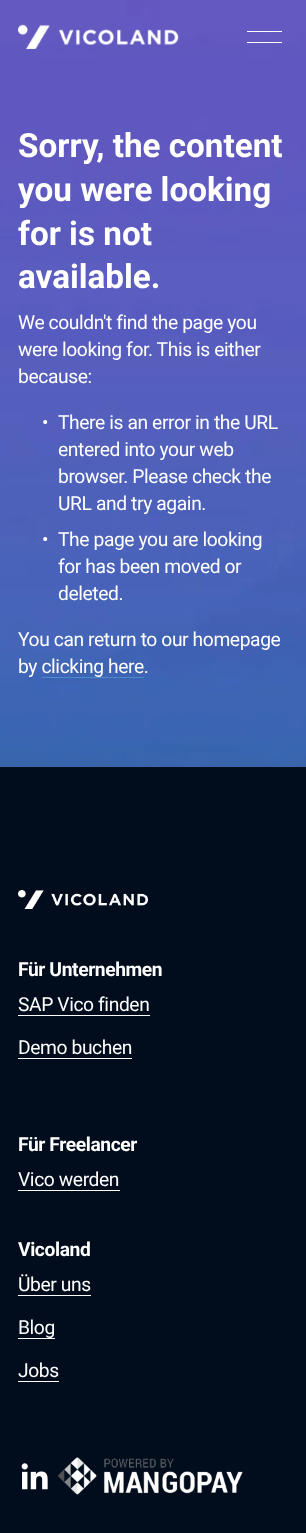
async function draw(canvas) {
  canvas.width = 306;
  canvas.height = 1533;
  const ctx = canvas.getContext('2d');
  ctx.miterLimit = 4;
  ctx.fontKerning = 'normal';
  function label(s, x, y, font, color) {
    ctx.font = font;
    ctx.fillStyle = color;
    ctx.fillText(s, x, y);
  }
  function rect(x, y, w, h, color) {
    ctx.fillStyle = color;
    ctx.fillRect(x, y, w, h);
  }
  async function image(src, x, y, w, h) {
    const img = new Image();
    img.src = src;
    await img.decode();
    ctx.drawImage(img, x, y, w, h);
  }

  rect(0, 0, 306, 1533, '#010c1c');
  await image('assets/img2.png', 0, 0, 306, 767);
  await image('assets/img1.png', 18, 24, 161, 25);
  rect(247, 31, 35, 1, '#fff');
  rect(247, 42, 35, 1, '#fff');
  label('Sorry, the content', 18, 157, 'bold 33.25px Roboto', '#fff');
  label('you were looking', 18, 201, 'bold 33.25px Roboto', '#fff');
  label('for is not', 18, 245, 'bold 33.25px Roboto', '#fff');
  label('available.', 18, 288, 'bold 33.25px Roboto', '#fff');
  ctx.letterSpacing = '-0.4px';
  label('We couldn\'t find the page you', 18, 329, '19.25px Roboto', '#fff');
  label('were looking for. This is either', 18, 356, '19.25px Roboto', '#fff');
  label('because:', 18, 383, '19.25px Roboto', '#fff');
  label('•', 42, 429, '19.25px Roboto', '#fff');
  label('There is an error in the URL', 58, 429, '19.25px Roboto', '#fff');
  label('entered into your web', 58, 456, '19.25px Roboto', '#fff');
  label('browser. Please check the', 58, 483, '19.25px Roboto', '#fff');
  label('URL and try again.', 58, 510, '19.25px Roboto', '#fff');
  label('•', 42, 546, '19.25px Roboto', '#fff');
  label('The page you are looking', 58, 546, '19.25px Roboto', '#fff');
  label('for has been moved or', 58, 573, '19.25px Roboto', '#fff');
  label('deleted.', 58, 600, '19.25px Roboto', '#fff');
  label('You can return to our homepage', 18, 646, '19.25px Roboto', '#fff');
  label('by clicking here.', 18, 673, '19.25px Roboto', '#fff');
  rect(42, 677, 102, 1, '#4b8cce');
  await image('assets/img3.png', 18, 890, 130, 19);
  label('Für Unternehmen', 18, 976, 'bold 19.25px Roboto', '#fff');
  label('SAP Vico finden', 18, 1011, '19.25px Roboto', '#fff');
  rect(18, 1015, 132, 1, '#fff');
  label('Demo buchen', 18, 1054, '19.25px Roboto', '#fff');
  rect(18, 1058, 114, 1, '#fff');
  label('Für Freelancer', 18, 1151, 'bold 19.25px Roboto', '#fff');
  label('Vico werden', 18, 1186, '19.25px Roboto', '#fff');
  rect(18, 1190, 102, 1, '#fff');
  label('Vicoland', 18, 1256, 'bold 19.25px Roboto', '#fff');
  label('Über uns', 18, 1291, '19.25px Roboto', '#fff');
  rect(18, 1295, 73, 1, '#fff');
  label('Blog', 18, 1334, '19.25px Roboto', '#fff');
  rect(18, 1338, 37, 1, '#fff');
  label('Jobs', 18, 1377, '19.25px Roboto', '#fff');
  rect(18, 1381, 41, 1, '#fff');
  await image('assets/img4.png', 21, 1463, 27, 27);
  await image('assets/img5.png', 58, 1457, 185, 38);
}

draw(document.querySelector('canvas'));
